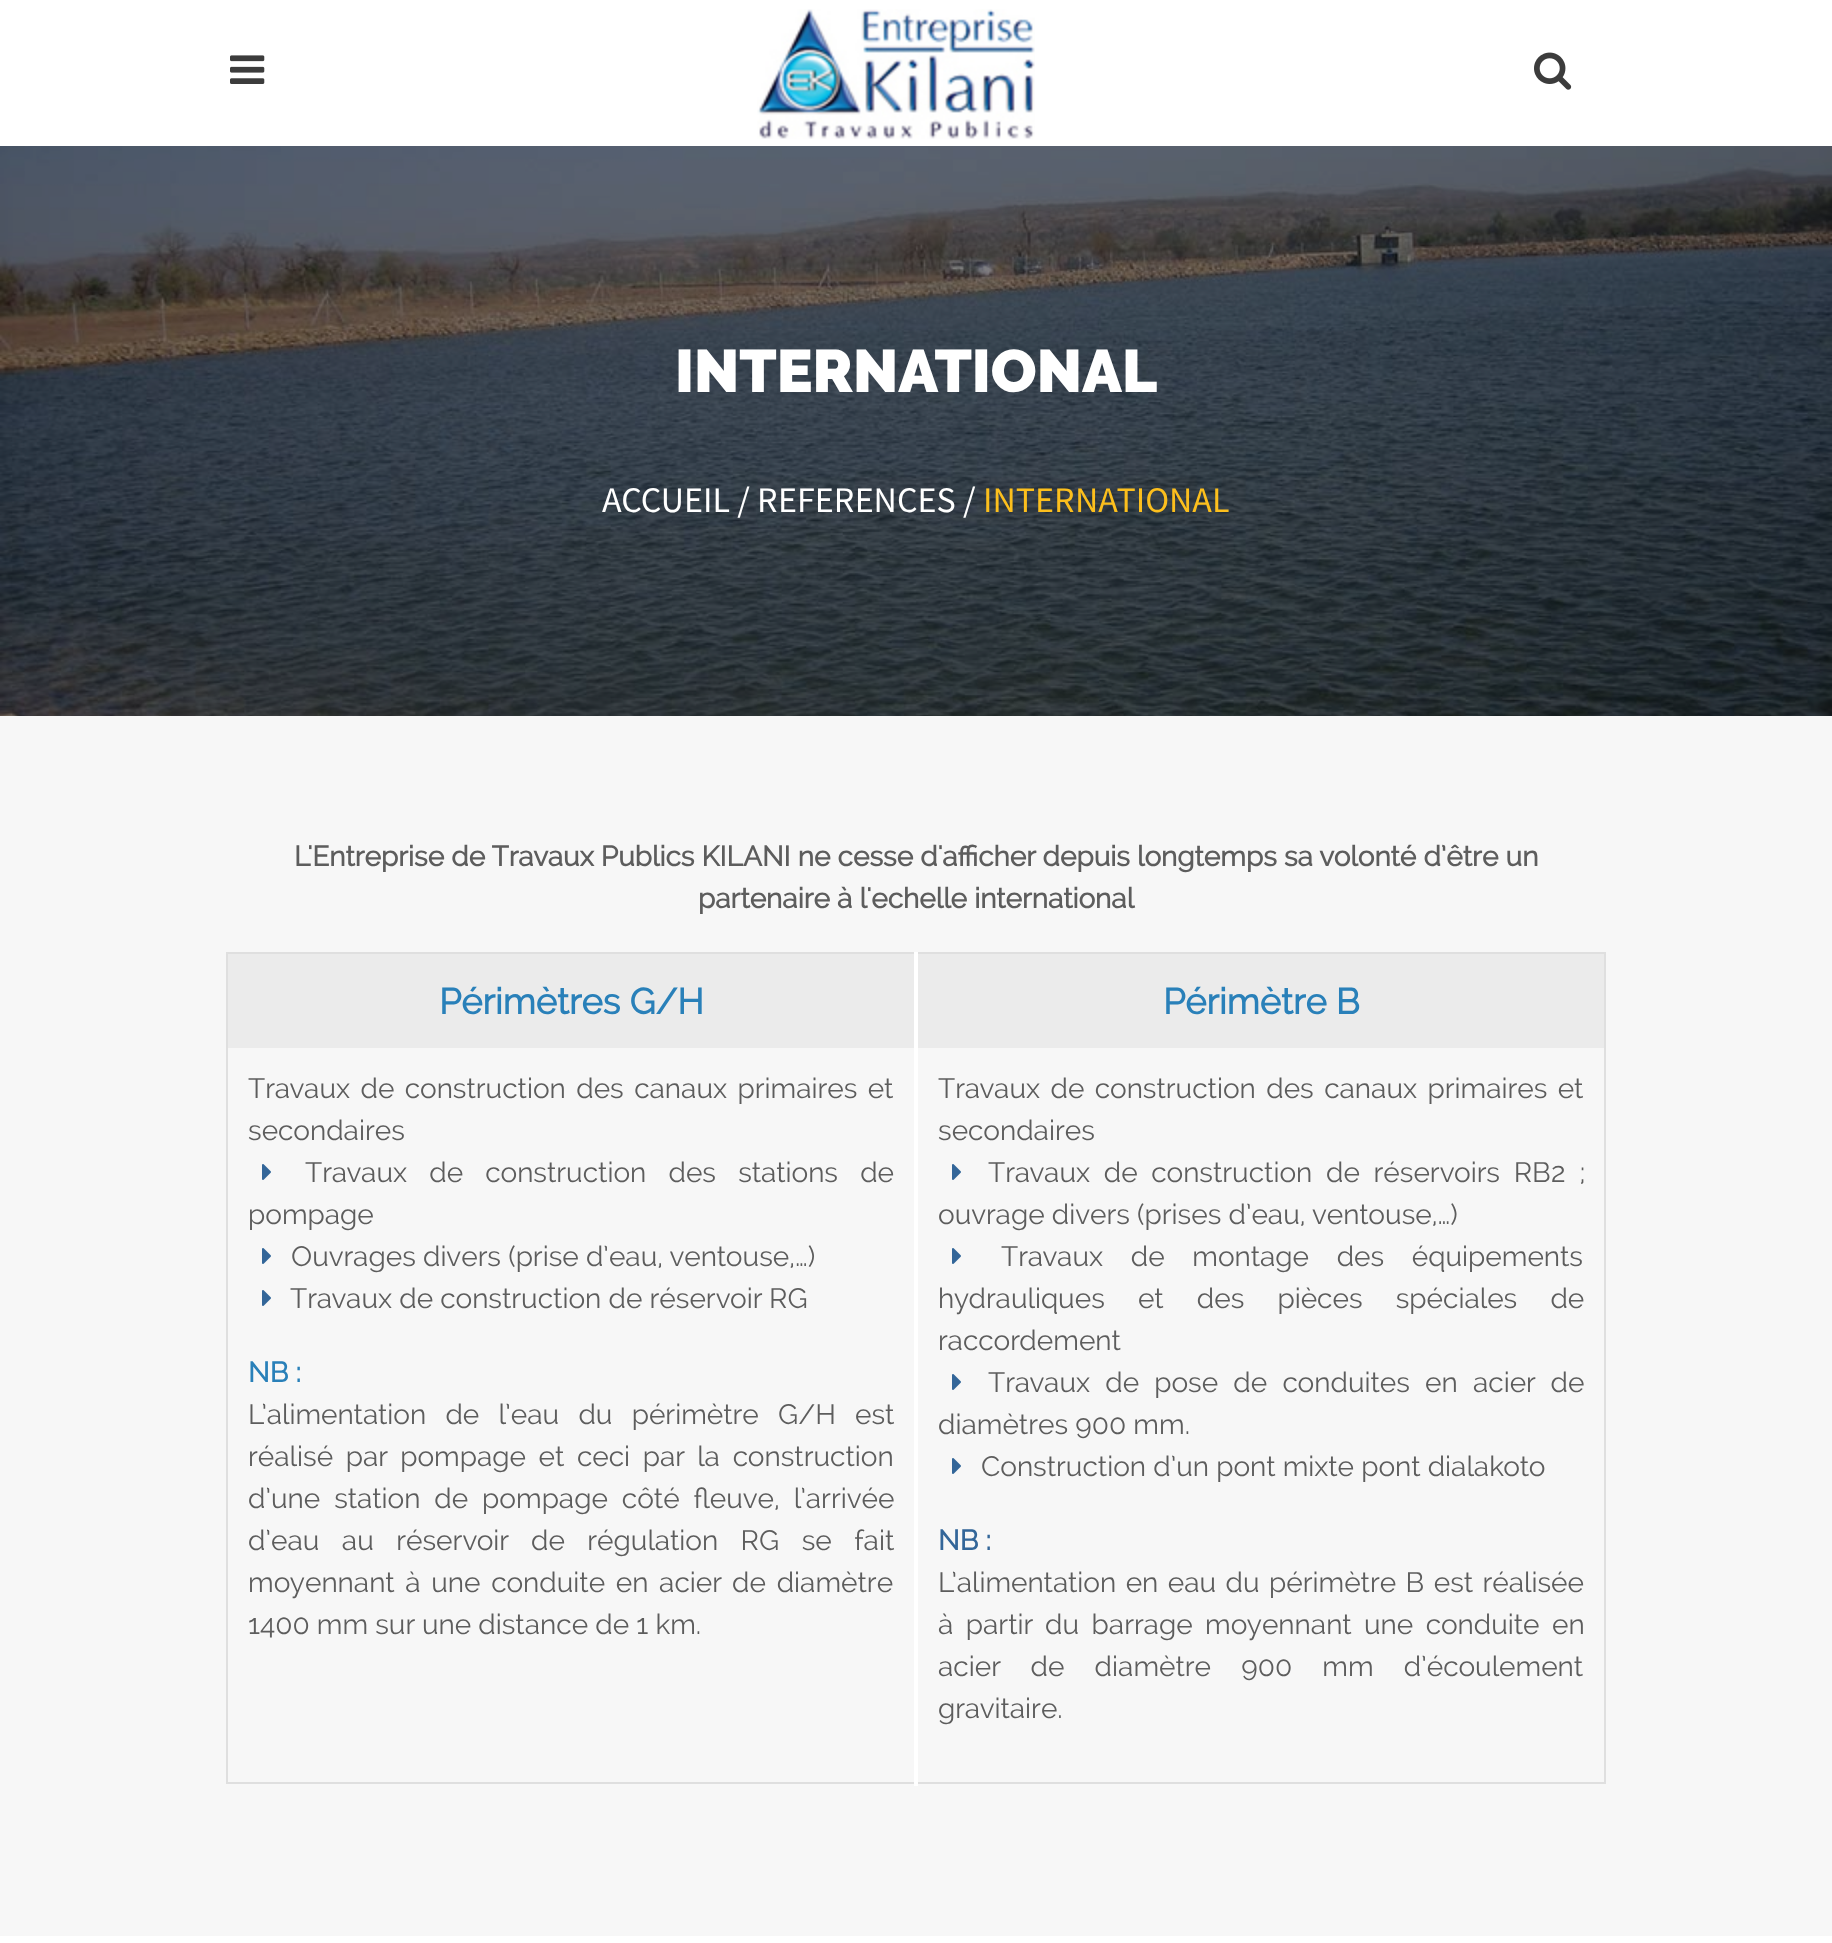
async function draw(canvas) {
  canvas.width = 1832;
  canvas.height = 1943;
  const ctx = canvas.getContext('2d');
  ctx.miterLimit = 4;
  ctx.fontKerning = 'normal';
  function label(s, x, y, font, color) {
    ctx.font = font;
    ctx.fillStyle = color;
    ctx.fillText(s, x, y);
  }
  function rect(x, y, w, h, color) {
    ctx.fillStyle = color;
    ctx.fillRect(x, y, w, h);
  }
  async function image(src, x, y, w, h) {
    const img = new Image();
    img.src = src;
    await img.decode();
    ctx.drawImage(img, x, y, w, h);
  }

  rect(0, 0, 1832, 1943, '#fff');
  await image('assets/img1.png', 230, 55, 35, 29);
  await image('assets/img2.png', 757, 9, 278, 130);
  await image('assets/img3.png', 1534, 52, 38, 38);
  await image('assets/img4.png', 0, 146, 1832, 570);
  label('INTERNATIONAL', 675, 392, '900 60px Raleway', '#fff');
  label('ACCUEIL / REFERENCES /', 602, 512, '36px Source Sans Pro', '#fff');
  label('INTERNATIONAL', 983, 512, '36px Source Sans Pro', '#fcbf1d');
  rect(0, 716, 1832, 1220, '#f7f7f7');
  label('L\'Entreprise de Travaux Publics KILANI ne cesse d\'afficher depuis longtemps sa volonté d’être un', 294, 866, 'bold 28px Raleway', '#5d5d5d');
  label('partenaire à l\'echelle international', 698, 908, 'bold 28px Raleway', '#5d5d5d');
  rect(226, 952, 1380, 2, '#dfdfdf');
  rect(228, 954, 1376, 94, '#ebebeb');
  label('Périmètres G/H', 439, 1014, 'bold 36px Raleway', '#2980b9');
  label('Périmètre B', 1163, 1014, 'bold 36px Raleway', '#2980b9');
  rect(1604, 952, 2, 832, '#dfdfdf');
  rect(226, 1782, 1380, 2, '#dfdfdf');
  rect(226, 952, 2, 832, '#dfdfdf');
  rect(914, 952, 4, 834, '#fff');
  ctx.wordSpacing = '3.25px';
  label('Travaux de construction des canaux primaires et', 248, 1098, '28px Raleway', '#5d5d5d');
  ctx.wordSpacing = '0px';
  label('secondaires', 248, 1140, '28px Raleway', '#5d5d5d');
  await image('assets/img5.png', 262, 1164, 9, 16);
  ctx.wordSpacing = '15px';
  label('Travaux de construction des stations de', 305, 1182, '28px Raleway', '#5d5d5d');
  ctx.wordSpacing = '0px';
  label('pompage', 248, 1224, '28px Raleway', '#5d5d5d');
  await image('assets/img5.png', 262, 1248, 9, 16);
  label('Ouvrages divers (prise d’eau, ventouse,…)', 291, 1266, '28px Raleway', '#5d5d5d');
  await image('assets/img5.png', 262, 1290, 9, 16);
  label('Travaux de construction de réservoir RG', 290, 1308, '28px Raleway', '#5d5d5d');
  label('NB :', 248, 1382, 'bold 28px Raleway', '#2980b9');
  ctx.wordSpacing = '12px';
  label('L’alimentation de l’eau du périmètre G/H est', 248, 1424, '28px Raleway', '#5d5d5d');
  ctx.wordSpacing = '5.5px';
  label('réalisé par pompage et ceci par la construction', 248, 1466, '28px Raleway', '#5d5d5d');
  ctx.wordSpacing = '6.75px';
  label('d’une station de pompage côté fleuve, l’arrivée', 248, 1508, '28px Raleway', '#5d5d5d');
  ctx.wordSpacing = '15.25px';
  label('d’eau au réservoir de régulation RG se fait', 248, 1550, '28px Raleway', '#5d5d5d');
  ctx.wordSpacing = '3.5px';
  label('moyennant à une conduite en acier de diamètre', 248, 1592, '28px Raleway', '#5d5d5d');
  ctx.wordSpacing = '0px';
  label('1400 mm sur une distance de 1 km.', 248, 1634, '28px Raleway', '#5d5d5d');
  ctx.wordSpacing = '3.25px';
  label('Travaux de construction des canaux primaires et', 938, 1098, '28px Raleway', '#5d5d5d');
  ctx.wordSpacing = '0px';
  label('secondaires', 938, 1140, '28px Raleway', '#5d5d5d');
  await image('assets/img5.png', 952, 1164, 9, 16);
  ctx.wordSpacing = '6.5px';
  label('Travaux de construction de réservoirs RB2 ;', 988, 1182, '28px Raleway', '#5d5d5d');
  ctx.wordSpacing = '0px';
  label('ouvrage divers (prises d’eau, ventouse,…)', 938, 1224, '28px Raleway', '#5d5d5d');
  await image('assets/img5.png', 952, 1248, 9, 16);
  ctx.wordSpacing = '20.5px';
  label('Travaux de montage des équipements', 1001, 1266, '28px Raleway', '#5d5d5d');
  ctx.wordSpacing = '26px';
  label('hydrauliques et des pièces spéciales de', 938, 1308, '28px Raleway', '#5d5d5d');
  ctx.wordSpacing = '0px';
  label('raccordement', 938, 1350, '28px Raleway', '#5d5d5d');
  await image('assets/img5.png', 952, 1374, 9, 16);
  ctx.wordSpacing = '8px';
  label('Travaux de pose de conduites en acier de', 988, 1392, '28px Raleway', '#5d5d5d');
  ctx.wordSpacing = '0px';
  label('diamètres 900 mm.', 938, 1434, '28px Raleway', '#5d5d5d');
  await image('assets/img5.png', 952, 1458, 9, 16);
  label('Construction d’un pont mixte pont dialakoto', 981, 1476, '28px Raleway', '#5d5d5d');
  label('NB :', 938, 1550, 'bold 28px Raleway', '#369');
  ctx.wordSpacing = '2.25px';
  label('L’alimentation en eau du périmètre B est réalisée', 938, 1592, '28px Raleway', '#5d5d5d');
  ctx.wordSpacing = '5.25px';
  label('à partir du barrage moyennant une conduite en', 938, 1634, '28px Raleway', '#5d5d5d');
  ctx.wordSpacing = '23px';
  label('acier de diamètre 900 mm d’écoulement', 938, 1676, '28px Raleway', '#5d5d5d');
  ctx.wordSpacing = '0px';
  label('gravitaire.', 938, 1718, '28px Raleway', '#5d5d5d');
}

draw(document.querySelector('canvas'));
